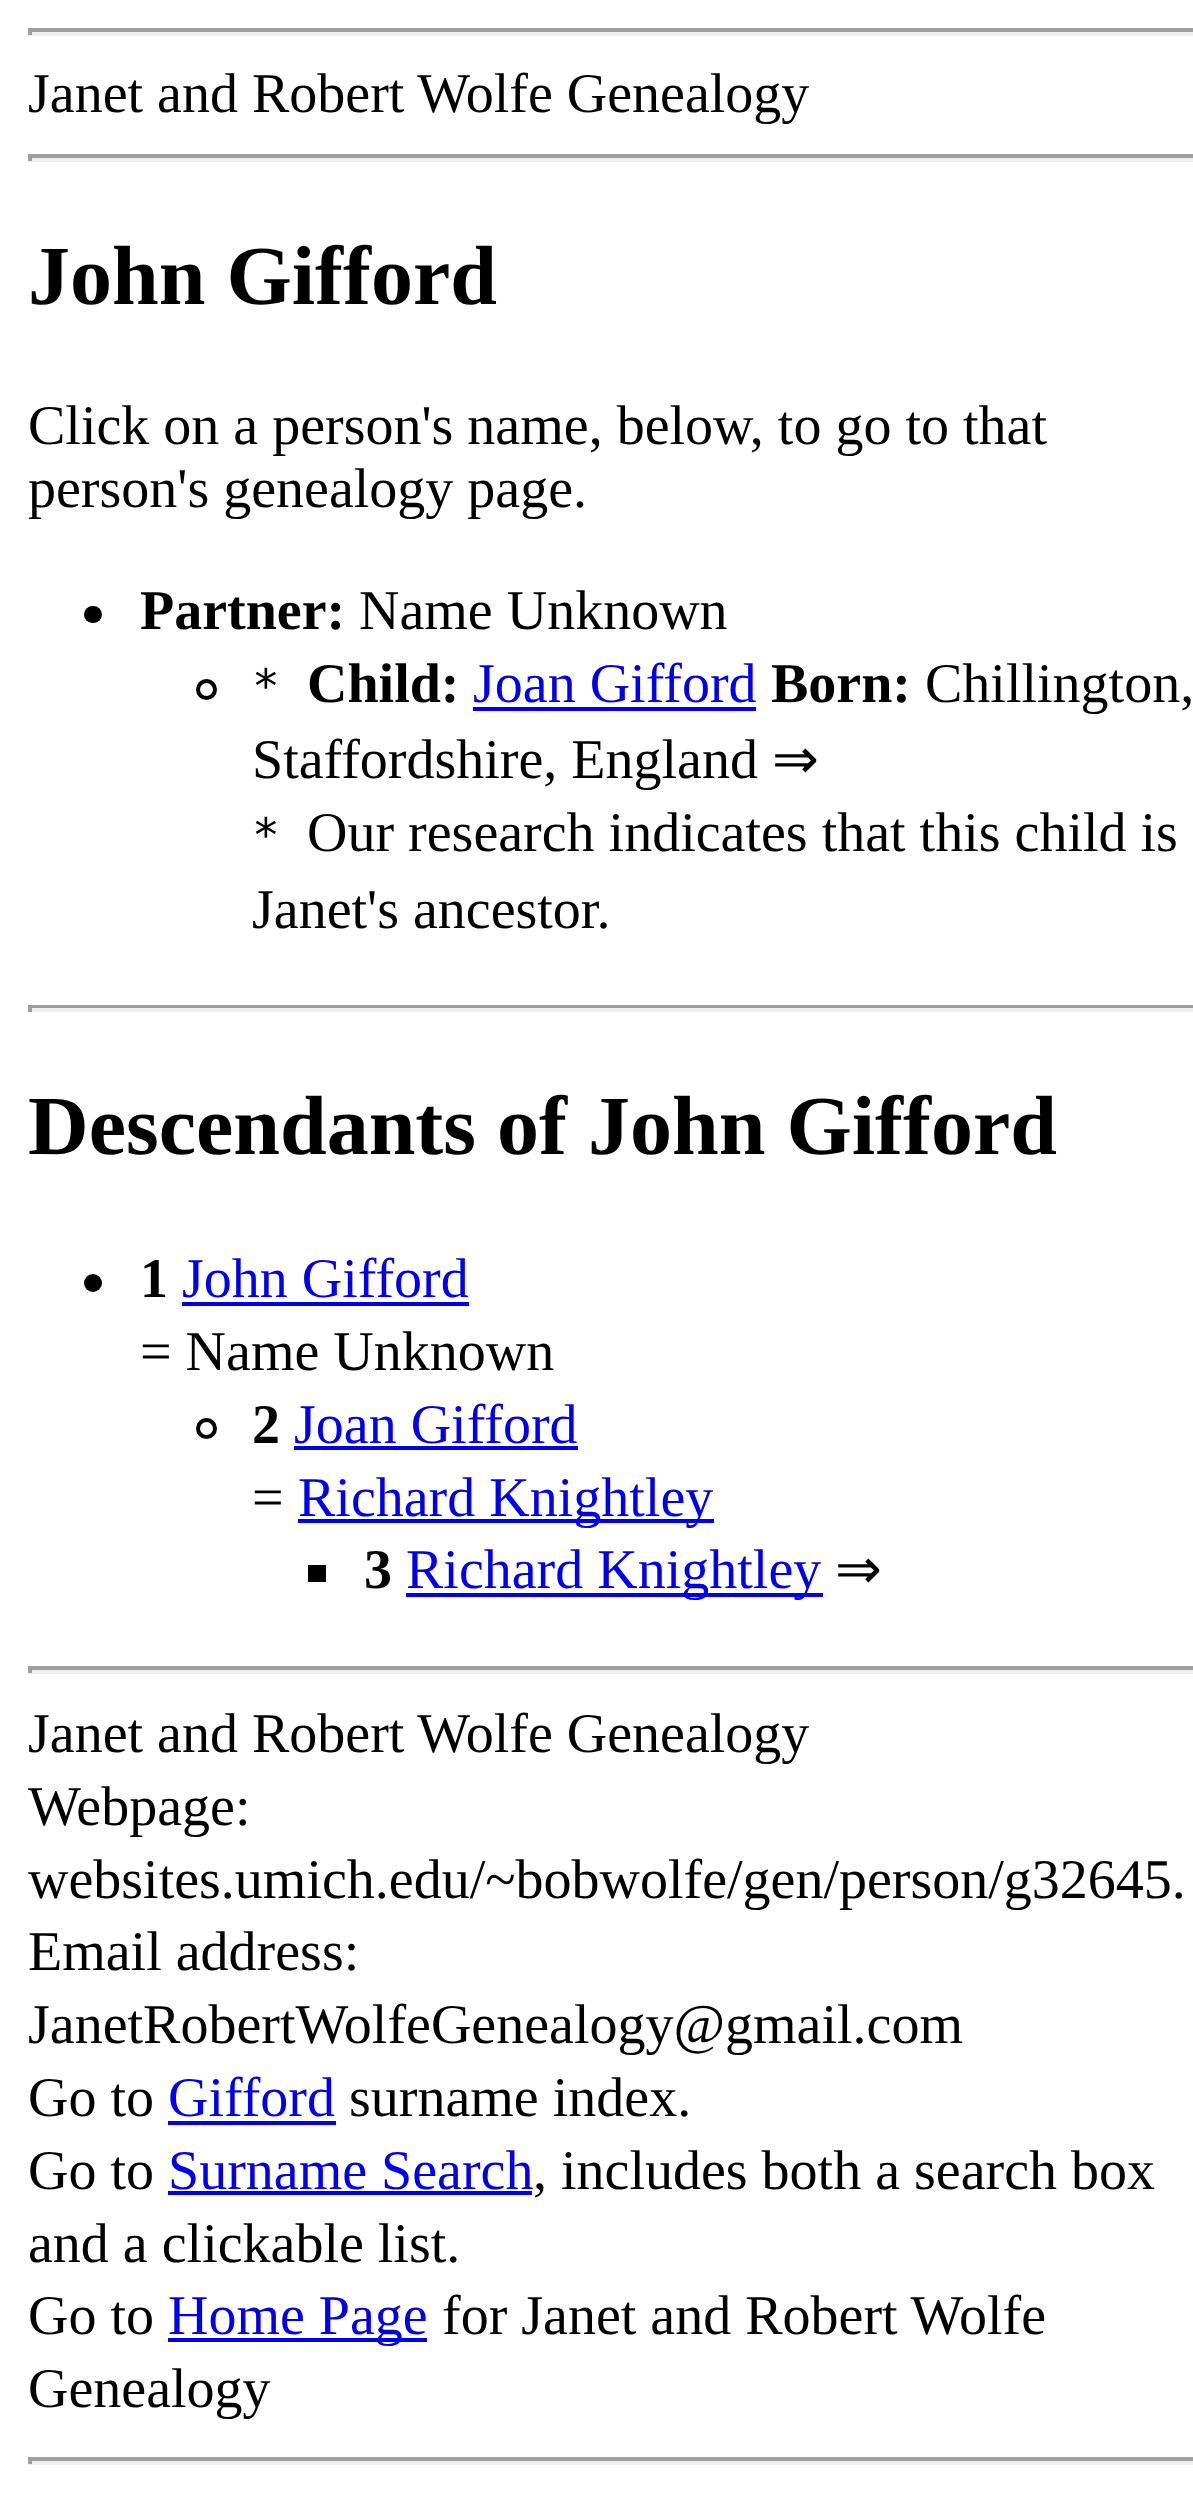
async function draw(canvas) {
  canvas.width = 1193;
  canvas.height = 2502;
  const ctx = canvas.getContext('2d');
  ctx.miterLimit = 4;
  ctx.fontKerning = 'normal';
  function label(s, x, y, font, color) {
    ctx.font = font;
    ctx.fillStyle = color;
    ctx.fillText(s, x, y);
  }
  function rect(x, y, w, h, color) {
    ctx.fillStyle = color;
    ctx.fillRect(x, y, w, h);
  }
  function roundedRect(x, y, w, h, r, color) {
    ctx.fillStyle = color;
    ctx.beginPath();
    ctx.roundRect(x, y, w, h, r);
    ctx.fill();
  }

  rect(0, 0, 1193, 2502, '#fff');
  rect(28, 28, 1165, 4, '#9f9f9f');
  rect(28, 32, 1165, 4, '#eee');
  rect(28, 28, 4, 7, '#9f9f9f');
  label('Janet and Robert Wolfe Genealogy', 28, 112, '56px Liberation Serif', '#000');
  rect(28, 154, 1165, 4, '#9f9f9f');
  rect(28, 158, 1165, 4, '#eee');
  rect(28, 154, 4, 7, '#9f9f9f');
  label('John Gifford', 28, 304, 'bold 84px Liberation Serif', '#000');
  label('Click on a person\'s name, below, to go to that', 28, 444, '56px Liberation Serif', '#000');
  label('person\'s genealogy page.', 28, 507, '56px Liberation Serif', '#000');
  roundedRect(84, 606, 18, 17, 8.5, '#000');
  label('Partner:', 140, 629, 'bold 56px Liberation Serif', '#000');
  label('Name Unknown', 359, 629, '56px Liberation Serif', '#000');
  ctx.beginPath();
  ctx.arc(206.5, 689.5, 8.5, 0, 2 * Math.PI);
  ctx.strokeStyle = '#000';
  ctx.lineWidth = 4;
  ctx.stroke();
  label('*', 252, 702, '46px DejaVu Sans Mono', '#000');
  label('Child:', 307, 702, 'bold 56px Liberation Serif', '#000');
  label('Joan Gifford', 473, 702, '56px Liberation Serif', '#00e');
  rect(473, 707, 283, 4, '#00e');
  label('Born:', 771, 702, 'bold 56px Liberation Serif', '#000');
  label('Chillington,', 925, 702, '56px Liberation Serif', '#000');
  label('Staffordshire, England', 252, 778, '56px Liberation Serif', '#000');
  label('⇒', 772, 778, '56px DejaVu Sans', '#000');
  label('*', 252, 851, '46px DejaVu Sans Mono', '#000');
  label('Our research indicates that this child is', 307, 851, '56px Liberation Serif', '#000');
  label('Janet\'s ancestor.', 252, 928, '56px Liberation Serif', '#000');
  rect(28, 1005, 1165, 3, '#9f9f9f');
  rect(28, 1008, 1165, 4, '#eee');
  rect(28, 1005, 4, 7, '#9f9f9f');
  label('Descendants of John Gifford', 28, 1154, 'bold 84px Liberation Serif', '#000');
  ctx.beginPath();
  ctx.arc(93, 1283, 9, 0, 2 * Math.PI);
  ctx.fill();
  label('1', 140, 1297, 'bold 56px Liberation Serif', '#000');
  label('John Gifford', 182, 1297, '56px Liberation Serif', '#00e');
  rect(182, 1302, 287, 4, '#00e');
  label('= Name Unknown', 140, 1370, '56px Liberation Serif', '#000');
  ctx.beginPath();
  ctx.arc(206.5, 1428.5, 8.5, 0, 2 * Math.PI);
  ctx.stroke();
  label('2', 252, 1443, 'bold 56px Liberation Serif', '#000');
  label('Joan Gifford', 294, 1443, '56px Liberation Serif', '#00e');
  rect(294, 1446, 284, 4, '#00e');
  label('=', 252, 1516, '56px Liberation Serif', '#000');
  rect(298, 1519, 416, 4, '#00e');
  label('Richard Knightley', 298, 1516, '56px Liberation Serif', '#00e');
  rect(308, 1565, 18, 17, '#000');
  label('3', 364, 1588, 'bold 56px Liberation Serif', '#000');
  rect(406, 1593, 417, 4, '#00e');
  label('Richard Knightley', 406, 1588, '56px Liberation Serif', '#00e');
  label('⇒', 835, 1588, '56px DejaVu Sans', '#000');
  rect(28, 1666, 1165, 4, '#9f9f9f');
  rect(28, 1670, 1165, 4, '#eee');
  rect(28, 1666, 4, 7, '#9f9f9f');
  label('Janet and Robert Wolfe Genealogy', 28, 1752, '56px Liberation Serif', '#000');
  label('Webpage:', 28, 1825, '56px Liberation Serif', '#000');
  label('websites.umich.edu/~bobwolfe/gen/person/g32645.', 28, 1898, '56px Liberation Serif', '#000');
  label('Email address:', 28, 1970, '56px Liberation Serif', '#000');
  label('JanetRobertWolfeGenealogy@gmail.com', 28, 2043, '56px Liberation Serif', '#000');
  label('Go to', 28, 2116, '56px Liberation Serif', '#000');
  label('Gifford', 168, 2116, '56px Liberation Serif', '#00e');
  rect(168, 2121, 168, 4, '#00e');
  label('surname index.', 349, 2116, '56px Liberation Serif', '#000');
  label('Go to', 28, 2189, '56px Liberation Serif', '#000');
  label('Surname Search', 168, 2189, '56px Liberation Serif', '#00e');
  rect(168, 2191, 364, 4, '#00e');
  label(', includes both a search box', 533, 2189, '56px Liberation Serif', '#000');
  label('and a clickable list.', 28, 2262, '56px Liberation Serif', '#000');
  label('Go to', 28, 2334, '56px Liberation Serif', '#000');
  rect(168, 2338, 259, 4, '#00e');
  label('Home Page', 168, 2334, '56px Liberation Serif', '#00e');
  label('for Janet and Robert Wolfe', 442, 2334, '56px Liberation Serif', '#000');
  label('Genealogy', 28, 2407, '56px Liberation Serif', '#000');
  rect(28, 2457, 1165, 4, '#9f9f9f');
  rect(28, 2461, 1165, 4, '#eee');
  rect(28, 2457, 4, 7, '#9f9f9f');
}

draw(document.querySelector('canvas'));
